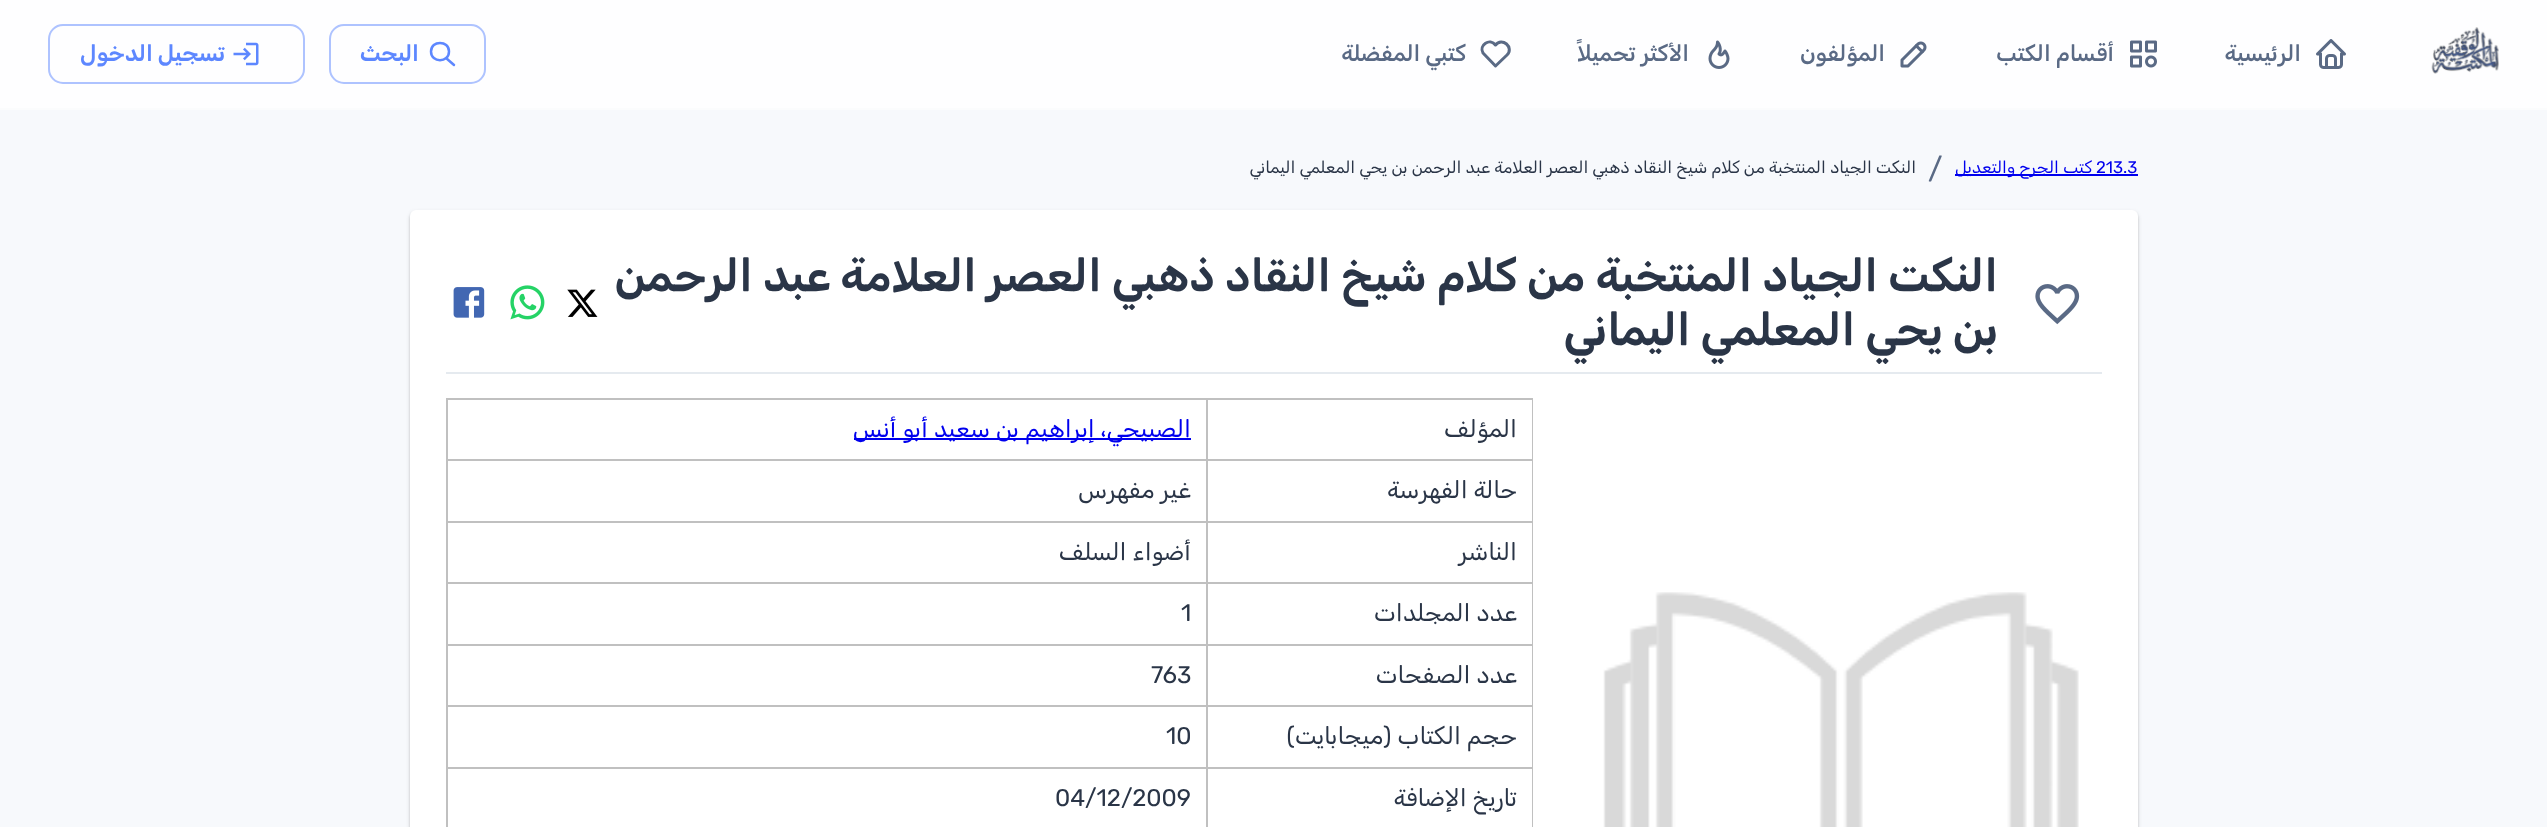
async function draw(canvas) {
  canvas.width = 2547;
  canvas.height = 827;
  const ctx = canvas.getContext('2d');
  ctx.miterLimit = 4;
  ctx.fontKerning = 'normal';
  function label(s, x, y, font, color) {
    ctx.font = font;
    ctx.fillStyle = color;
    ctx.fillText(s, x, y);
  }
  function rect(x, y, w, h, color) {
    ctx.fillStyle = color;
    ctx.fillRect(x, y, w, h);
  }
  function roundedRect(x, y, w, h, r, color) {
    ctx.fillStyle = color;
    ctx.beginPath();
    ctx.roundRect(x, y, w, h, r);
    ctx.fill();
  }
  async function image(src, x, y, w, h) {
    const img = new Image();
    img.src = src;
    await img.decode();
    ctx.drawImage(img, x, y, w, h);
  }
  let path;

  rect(0, 0, 2547, 827, '#f7f9fc');
  rect(0, 0, 2547, 108, '#ffffffd9');
  rect(0, 108, 2547, 2, '#fbfcfd');
  await image('assets/img1.png', 2431, 27, 68, 47);
  await image('assets/img2.png', 2316, 39, 30, 30);
  ctx.direction = 'rtl';
  label('الرئيسية', 2301, 61, '500 22.5px Rubik', '#5a6a85');
  await image('assets/img3.png', 2130, 40, 27, 28);
  label('أقسام الكتب', 2114, 61, '500 22.5px Rubik', '#5a6a85');
  await image('assets/img4.png', 1900, 41, 27, 27);
  label('المؤلفون', 1885, 61, '500 22.5px Rubik', '#5a6a85');
  await image('assets/img5.png', 1708, 40, 22, 29);
  label('الأكثر تحميلاً', 1689, 61, '500 22.5px Rubik', '#5a6a85');
  path = new Path2D('M1507 55L1495.5 66L1483 53C1478.5 45 1490 37.5 1495.5 45C1502 36.5 1514.5 47.5 1507 55');
  ctx.strokeStyle = '#5a6a85';
  ctx.lineWidth = 3;
  ctx.lineCap = 'round';
  ctx.lineJoin = 'round';
  ctx.stroke(path);
  label('كتبي المفضلة', 1466, 61, '500 22.5px Rubik', '#5a6a85');
  ctx.beginPath();
  ctx.roundRect(330, 25, 155, 58, 14);
  ctx.strokeStyle = '#5d87ff80';
  ctx.lineWidth = 2;
  ctx.lineJoin = 'miter';
  ctx.stroke();
  path = new Path2D('M431 51.5C431 63 449 63 449 51.5C449 40 431 40 431 51.5M454 65L446 58');
  ctx.strokeStyle = '#5d87ff';
  ctx.lineWidth = 2.5;
  ctx.lineJoin = 'round';
  ctx.stroke(path);
  label('البحث', 419, 61, '600 22.5px Rubik', '#5d87ff');
  ctx.beginPath();
  ctx.roundRect(49, 25, 255, 58, 14);
  ctx.strokeStyle = '#5d87ff80';
  ctx.lineWidth = 2;
  ctx.lineJoin = 'miter';
  ctx.stroke();
  await image('assets/img6.png', 233, 42, 26, 24);
  label('تسجيل الدخول', 225, 61, '600 22.5px Rubik', '#5d87ff');
  ctx.direction = 'ltr';
  label('213.3', 2096, 173, '16.8px Rubik', '#00e');
  rect(1955, 174, 183, 2, '#00e');
  ctx.direction = 'rtl';
  label('كتب الجرح والتعديل', 2092, 173, '16.8px Rubik', '#00e');
  ctx.direction = 'ltr';
  label('/', 1928, 179, '30px Rubik', '#5a6a85');
  ctx.direction = 'rtl';
  label('النكت الجياد المنتخبة من كلام شيخ النقاد ذهبي العصر العلامة عبد الرحمن بن يحي المعلمي اليماني', 1916, 173, '16.8px Rubik', '#2a3547');
  ctx.fillStyle = '#0000001f';
  ctx.filter = 'blur(2px)';
  ctx.beginPath();
  ctx.roundRect(410, 212, 1728, 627, 6);
  ctx.fill();
  ctx.filter = 'none';
  ctx.fillStyle = '#00000024';
  ctx.filter = 'blur(1px)';
  ctx.beginPath();
  ctx.roundRect(410, 212, 1728, 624, 6);
  ctx.fill();
  ctx.filter = 'none';
  roundedRect(410, 210, 1728, 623, 6, '#fff');
  await image('assets/img7.png', 2035, 284, 45, 41);
  label('النكت الجياد المنتخبة من كلام شيخ النقاد ذهبي العصر العلامة عبد الرحمن', 1998, 291, '600 45px Rubik', '#2a3547');
  label('بن يحي المعلمي اليماني', 1998, 345, '600 45px Rubik', '#2a3547');
  await image('assets/img8.png', 567, 289, 31, 28);
  await image('assets/img9.png', 510, 285, 35, 35);
  await image('assets/img10.png', 453, 287, 32, 31);
  rect(446, 372, 1656, 2, '#e5eaef');
  await image('assets/img11.png', 1603, 592, 476, 235);
  rect(446, 398, 762, 2, '#c0c0c0');
  rect(446, 459, 762, 2, '#c0c0c0');
  rect(446, 521, 762, 2, '#c0c0c0');
  rect(446, 582, 762, 2, '#c0c0c0');
  rect(446, 644, 762, 2, '#c0c0c0');
  rect(446, 705, 762, 2, '#c0c0c0');
  rect(446, 767, 762, 2, '#c0c0c0');
  rect(1206, 767, 2, 60, '#c0c0c0');
  rect(1206, 767, 327, 2, '#c0c0c0');
  rect(1206, 705, 2, 63, '#c0c0c0');
  rect(1206, 705, 327, 2, '#c0c0c0');
  rect(1206, 644, 2, 63, '#c0c0c0');
  rect(1206, 644, 327, 2, '#c0c0c0');
  rect(1206, 582, 2, 63, '#c0c0c0');
  rect(1206, 582, 327, 2, '#c0c0c0');
  rect(1206, 521, 2, 63, '#c0c0c0');
  rect(1206, 521, 327, 2, '#c0c0c0');
  rect(1206, 459, 2, 63, '#c0c0c0');
  rect(1206, 459, 327, 2, '#c0c0c0');
  rect(1206, 398, 2, 63, '#c0c0c0');
  rect(1206, 398, 327, 2, '#c0c0c0');
  rect(1532, 767, 1, 60, '#c0c0c0');
  rect(1532, 705, 1, 63, '#c0c0c0');
  rect(1532, 644, 1, 63, '#c0c0c0');
  rect(1532, 582, 1, 63, '#c0c0c0');
  rect(1532, 521, 1, 63, '#c0c0c0');
  rect(1532, 459, 1, 63, '#c0c0c0');
  rect(1532, 398, 1, 63, '#c0c0c0');
  label('المؤلف', 1517, 437, '24px Rubik', '#2a3547');
  rect(446, 767, 2, 60, '#c0c0c0');
  rect(446, 705, 2, 63, '#c0c0c0');
  rect(446, 644, 2, 63, '#c0c0c0');
  rect(446, 582, 2, 63, '#c0c0c0');
  rect(446, 521, 2, 63, '#c0c0c0');
  rect(446, 459, 2, 63, '#c0c0c0');
  rect(446, 398, 2, 63, '#c0c0c0');
  rect(854, 438, 337, 2, '#00e');
  label('الصبيحي، إبراهيم بن سعيد أبو أنس', 1191, 437, '24px Rubik', '#00e');
  label('حالة الفهرسة', 1517, 498, '24px Rubik', '#2a3547');
  label('غير مفهرس', 1191, 498, '24px Rubik', '#2a3547');
  label('الناشر', 1517, 560, '24px Rubik', '#2a3547');
  label('أضواء السلف', 1191, 560, '24px Rubik', '#2a3547');
  label('عدد المجلدات', 1517, 621, '24px Rubik', '#2a3547');
  ctx.direction = 'ltr';
  label('1', 1181, 621, '24px Rubik', '#2a3547');
  ctx.direction = 'rtl';
  label('عدد الصفحات', 1517, 683, '24px Rubik', '#2a3547');
  ctx.direction = 'ltr';
  label('763', 1151, 683, '24px Rubik', '#2a3547');
  ctx.direction = 'rtl';
  label('حجم الكتاب (ميجابايت)', 1517, 744, '24px Rubik', '#2a3547');
  ctx.direction = 'ltr';
  label('10', 1166, 744, '24px Rubik', '#2a3547');
  ctx.direction = 'rtl';
  label('تاريخ الإضافة', 1517, 806, '24px Rubik', '#2a3547');
  ctx.direction = 'ltr';
  label('04/12/2009', 1055, 806, '24px Rubik', '#2a3547');
}

draw(document.querySelector('canvas'));
